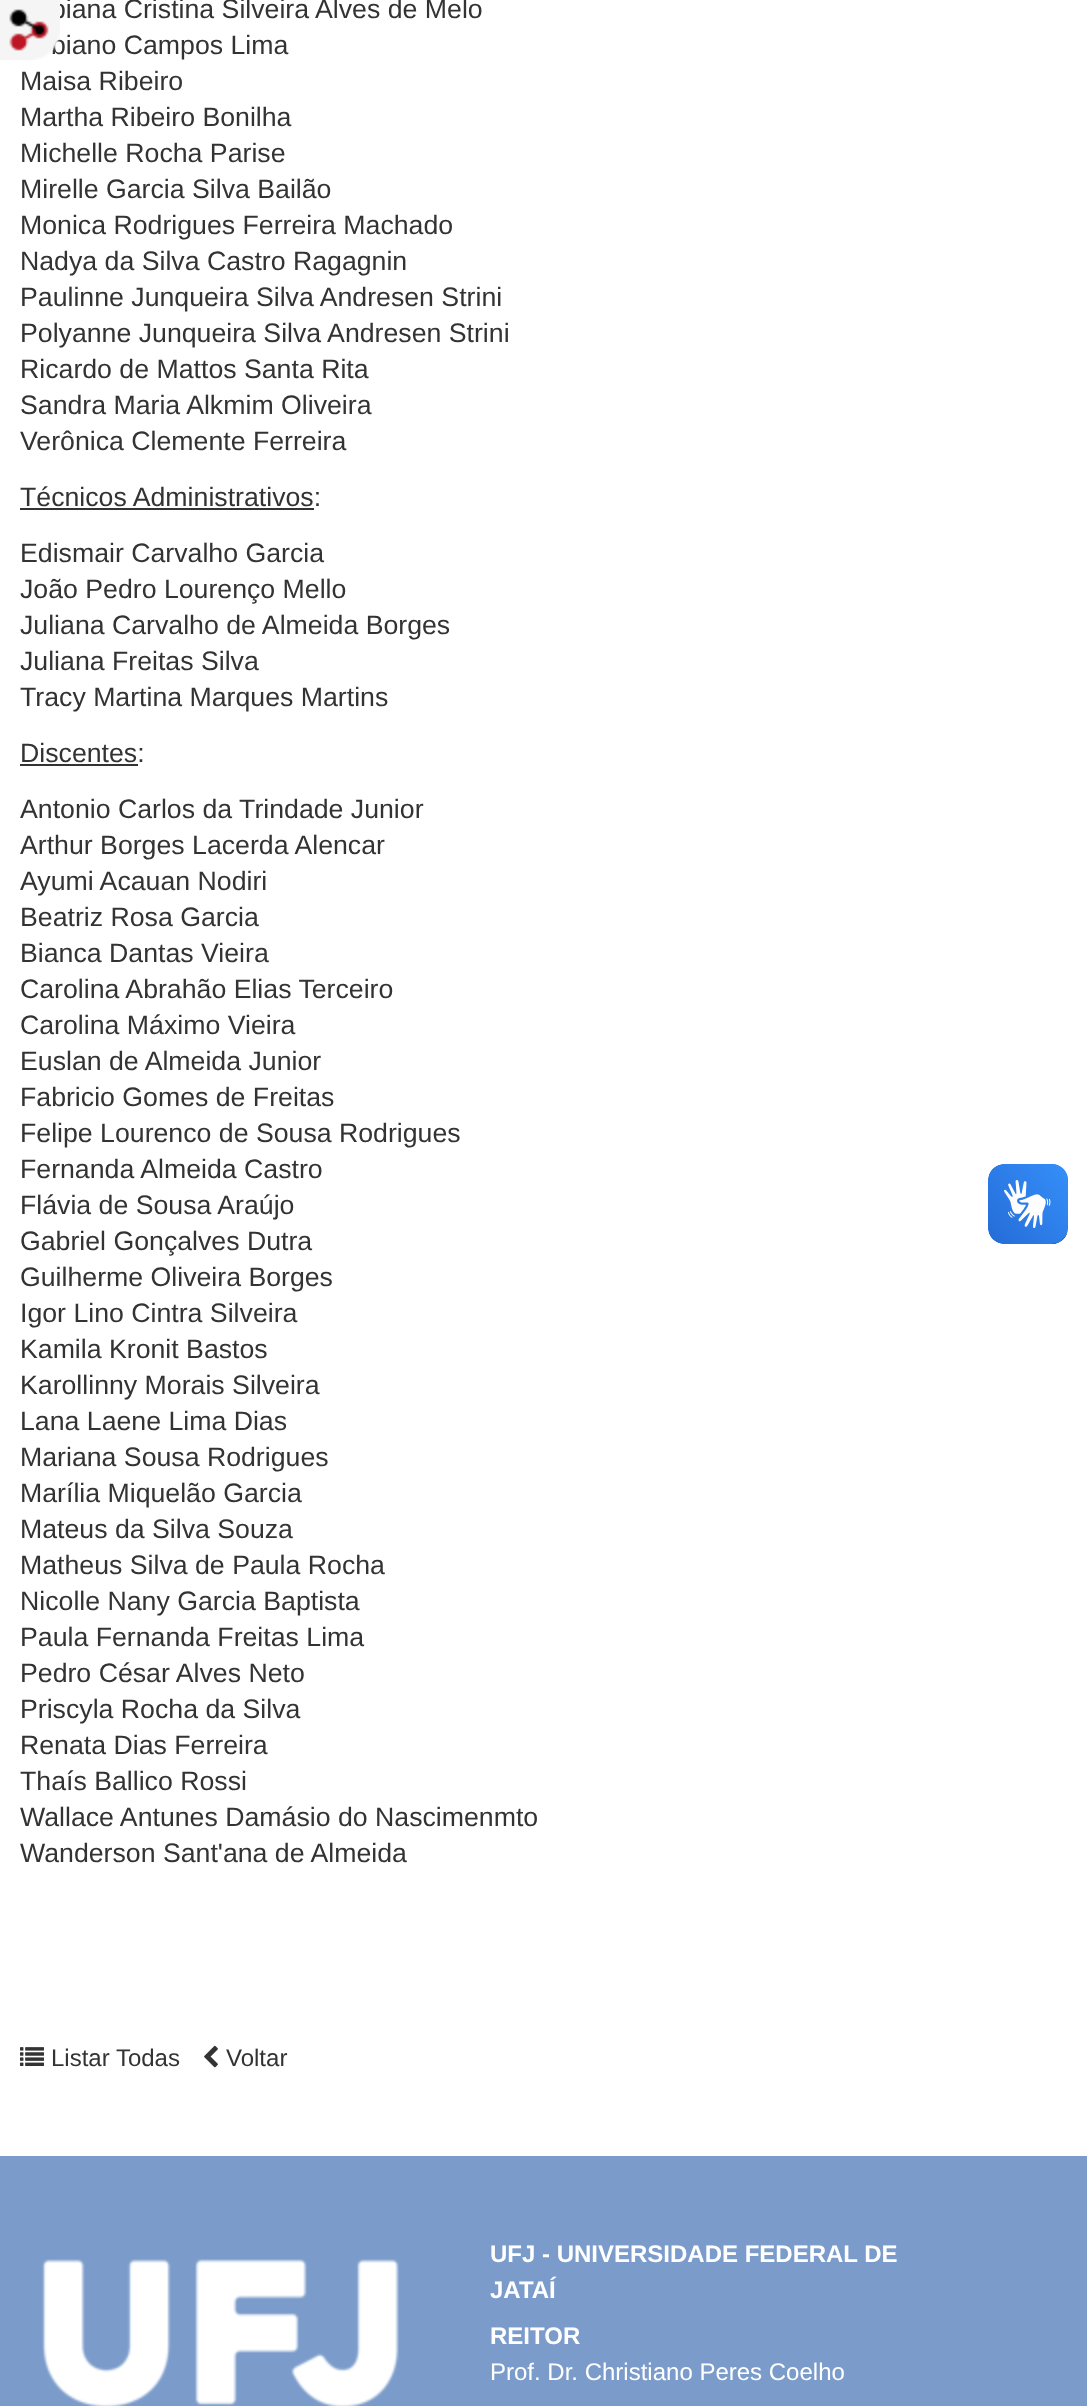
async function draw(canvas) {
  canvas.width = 1087;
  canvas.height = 2406;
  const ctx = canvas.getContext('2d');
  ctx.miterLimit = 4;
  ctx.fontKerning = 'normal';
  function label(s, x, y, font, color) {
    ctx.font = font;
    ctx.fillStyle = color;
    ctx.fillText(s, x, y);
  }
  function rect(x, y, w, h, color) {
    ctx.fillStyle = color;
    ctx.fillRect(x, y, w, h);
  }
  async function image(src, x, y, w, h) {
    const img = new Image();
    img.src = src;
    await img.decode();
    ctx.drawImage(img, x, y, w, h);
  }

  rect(0, 0, 1087, 2406, '#fff');
  label('biana Cristina Silveira Alves de Melo', 51, 18, '26.7px Liberation Sans', '#333');
  label('biano Campos Lima', 51, 54, '26.7px Liberation Sans', '#333');
  await image('assets/img1.png', 0, 0, 60, 60);
  label('Maisa Ribeiro', 20, 90, '26.7px Liberation Sans', '#333');
  label('Martha Ribeiro Bonilha', 20, 126, '26.7px Liberation Sans', '#333');
  label('Michelle Rocha Parise', 20, 162, '26.7px Liberation Sans', '#333');
  label('Mirelle Garcia Silva Bailão', 20, 198, '26.7px Liberation Sans', '#333');
  label('Monica Rodrigues Ferreira Machado', 20, 234, '26.7px Liberation Sans', '#333');
  label('Nadya da Silva Castro Ragagnin', 20, 270, '26.7px Liberation Sans', '#333');
  label('Paulinne Junqueira Silva Andresen Strini', 20, 306, '26.7px Liberation Sans', '#333');
  label('Polyanne Junqueira Silva Andresen Strini', 20, 342, '26.7px Liberation Sans', '#333');
  label('Ricardo de Mattos Santa Rita', 20, 378, '26.7px Liberation Sans', '#333');
  label('Sandra Maria Alkmim Oliveira', 20, 414, '26.7px Liberation Sans', '#333');
  label('Verônica Clemente Ferreira', 20, 450, '26.7px Liberation Sans', '#333');
  label('Técnicos Administrativos:', 20, 506, '26.7px Liberation Sans', '#333');
  rect(20, 508, 294, 2, '#333');
  label('Edismair Carvalho Garcia', 20, 562, '26.7px Liberation Sans', '#333');
  label('João Pedro Lourenço Mello', 20, 598, '26.7px Liberation Sans', '#333');
  label('Juliana Carvalho de Almeida Borges', 20, 634, '26.7px Liberation Sans', '#333');
  label('Juliana Freitas Silva', 20, 670, '26.7px Liberation Sans', '#333');
  label('Tracy Martina Marques Martins', 20, 706, '26.7px Liberation Sans', '#333');
  label('Discentes:', 20, 762, '26.7px Liberation Sans', '#333');
  rect(20, 764, 118, 2, '#333');
  label('Antonio Carlos da Trindade Junior', 20, 818, '26.7px Liberation Sans', '#333');
  label('Arthur Borges Lacerda Alencar', 20, 854, '26.7px Liberation Sans', '#333');
  label('Ayumi Acauan Nodiri', 20, 890, '26.7px Liberation Sans', '#333');
  label('Beatriz Rosa Garcia', 20, 926, '26.7px Liberation Sans', '#333');
  label('Bianca Dantas Vieira', 20, 962, '26.7px Liberation Sans', '#333');
  label('Carolina Abrahão Elias Terceiro', 20, 998, '26.7px Liberation Sans', '#333');
  label('Carolina Máximo Vieira', 20, 1034, '26.7px Liberation Sans', '#333');
  label('Euslan de Almeida Junior', 20, 1070, '26.7px Liberation Sans', '#333');
  label('Fabricio Gomes de Freitas', 20, 1106, '26.7px Liberation Sans', '#333');
  label('Felipe Lourenco de Sousa Rodrigues', 20, 1142, '26.7px Liberation Sans', '#333');
  label('Fernanda Almeida Castro', 20, 1178, '26.7px Liberation Sans', '#333');
  label('Flávia de Sousa Araújo', 20, 1214, '26.7px Liberation Sans', '#333');
  label('Gabriel Gonçalves Dutra', 20, 1250, '26.7px Liberation Sans', '#333');
  label('Guilherme Oliveira Borges', 20, 1286, '26.7px Liberation Sans', '#333');
  label('Igor Lino Cintra Silveira', 20, 1322, '26.7px Liberation Sans', '#333');
  label('Kamila Kronit Bastos', 20, 1358, '26.7px Liberation Sans', '#333');
  label('Karollinny Morais Silveira', 20, 1394, '26.7px Liberation Sans', '#333');
  label('Lana Laene Lima Dias', 20, 1430, '26.7px Liberation Sans', '#333');
  label('Mariana Sousa Rodrigues', 20, 1466, '26.7px Liberation Sans', '#333');
  label('Marília Miquelão Garcia', 20, 1502, '26.7px Liberation Sans', '#333');
  label('Mateus da Silva Souza', 20, 1538, '26.7px Liberation Sans', '#333');
  label('Matheus Silva de Paula Rocha', 20, 1574, '26.7px Liberation Sans', '#333');
  label('Nicolle Nany Garcia Baptista', 20, 1610, '26.7px Liberation Sans', '#333');
  label('Paula Fernanda Freitas Lima', 20, 1646, '26.7px Liberation Sans', '#333');
  label('Pedro César Alves Neto', 20, 1682, '26.7px Liberation Sans', '#333');
  label('Priscyla Rocha da Silva', 20, 1718, '26.7px Liberation Sans', '#333');
  label('Renata Dias Ferreira', 20, 1754, '26.7px Liberation Sans', '#333');
  label('Thaís Ballico Rossi', 20, 1790, '26.7px Liberation Sans', '#333');
  label('Wallace Antunes Damásio do Nascimenmto', 20, 1826, '26.7px Liberation Sans', '#333');
  label('Wanderson Sant\'ana de Almeida', 20, 1862, '26.7px Liberation Sans', '#333');
  await image('assets/img2.png', 20, 2047, 24, 19);
  label('Listar Todas', 51, 2066, '24px Liberation Sans', '#333');
  await image('assets/img3.png', 204, 2045, 14, 23);
  label('Voltar', 226, 2066, '24px Liberation Sans', '#333');
  await image('assets/img4.png', 988, 1164, 80, 80);
  await image('assets/img5.png', 988, 1164, 80, 80);
  rect(0, 2156, 1087, 250, '#7b9ccb');
  await image('assets/img6.png', 42, 2259, 357, 147);
  label('UFJ - UNIVERSIDADE FEDERAL DE', 490, 2262, 'bold 24px Liberation Sans', '#fff');
  label('JATAÍ', 490, 2298, 'bold 24px Liberation Sans', '#fff');
  label('REITOR', 490, 2344, 'bold 24px Liberation Sans', '#fff');
  label('Prof. Dr. Christiano Peres Coelho', 490, 2380, '24px Liberation Sans', '#fff');
}

draw(document.querySelector('canvas'));
